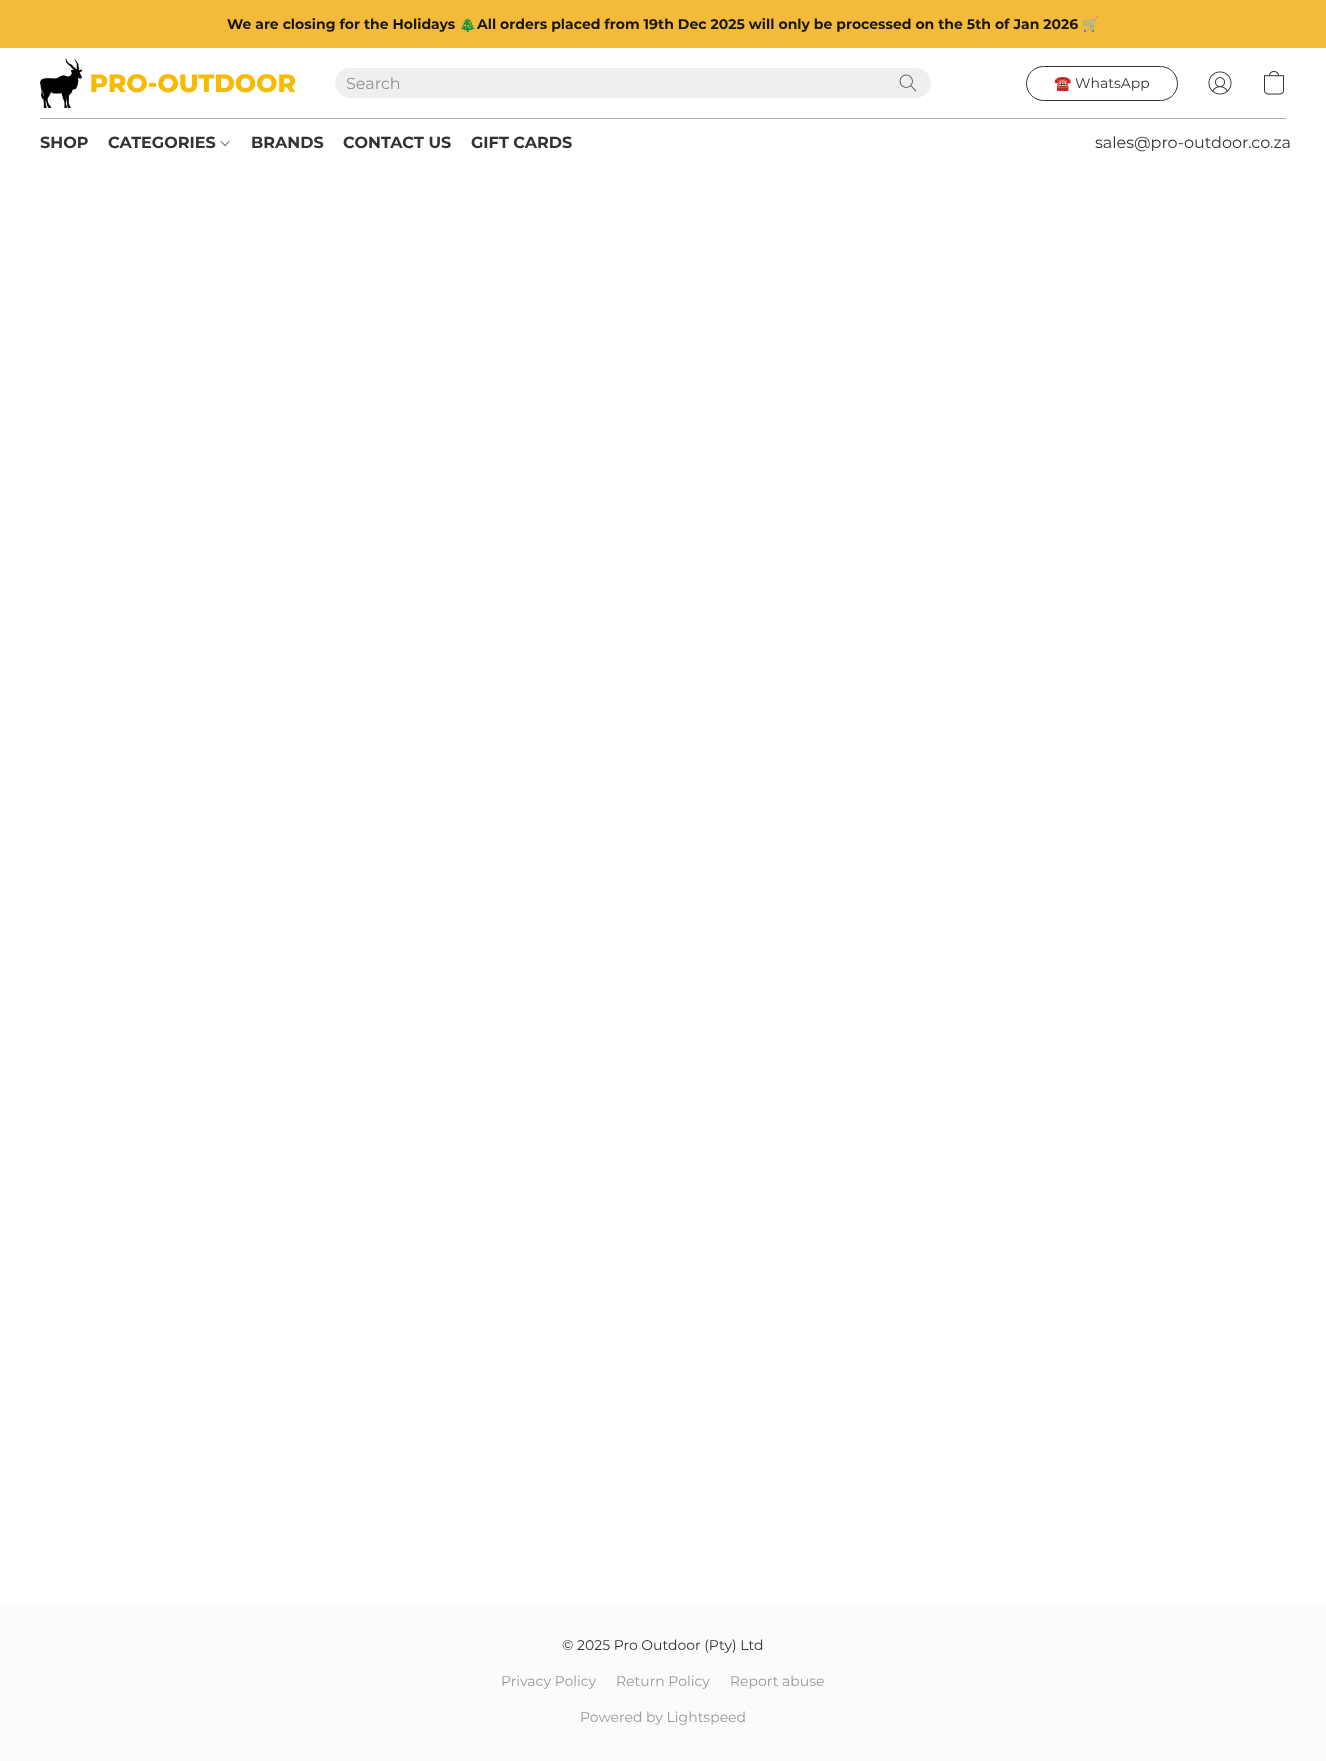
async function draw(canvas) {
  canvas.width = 1326;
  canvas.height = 1761;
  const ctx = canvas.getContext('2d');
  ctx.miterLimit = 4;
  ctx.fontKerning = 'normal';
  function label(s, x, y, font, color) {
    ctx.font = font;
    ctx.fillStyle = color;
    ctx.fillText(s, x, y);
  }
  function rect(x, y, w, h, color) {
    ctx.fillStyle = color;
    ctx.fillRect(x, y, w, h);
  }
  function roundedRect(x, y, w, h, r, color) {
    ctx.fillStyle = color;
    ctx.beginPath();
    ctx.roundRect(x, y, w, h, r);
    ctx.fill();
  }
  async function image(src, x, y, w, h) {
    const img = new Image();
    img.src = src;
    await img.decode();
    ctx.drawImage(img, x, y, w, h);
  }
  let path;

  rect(0, 0, 1326, 1761, '#fff');
  rect(0, 0, 1326, 48, '#f3bb39');
  label('We are closing for the Holidays', 227, 29, '100 14px "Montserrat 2"', '#171717');
  label('🎄', 459, 29, 'bold 14px Noto Color Emoji', '#171717');
  label('All orders placed from 19th Dec 2025 will only be processed on the 5th of Jan 2026', 477, 29, '100 14px "Montserrat 2"', '#171717');
  label('🛒', 1082, 29, 'bold 14px Noto Color Emoji', '#171717');
  await image('assets/img1.png', 40, 58, 255, 50);
  roundedRect(335, 68, 596, 30, 15, '#efefef');
  label('Search', 346, 89, '100 16px Montserrat', '#919191');
  await image('assets/img2.png', 899, 74, 18, 18);
  ctx.beginPath();
  ctx.roundRect(1026.5, 66.5, 151, 34, 17);
  ctx.strokeStyle = '#333';
  ctx.stroke();
  label('☎️', 1054, 88, '14px Noto Color Emoji', '#333');
  label('WhatsApp', 1075, 88, '100 14px Montserrat', '#333');
  await image('assets/img3.png', 1208, 71, 24, 24);
  await image('assets/img4.png', 1264, 71, 20, 24);
  rect(40, 118, 1246, 1, '#adadad');
  label('SHOP', 40, 148, '100 16px "Montserrat 2"', '#333');
  label('CATEGORIES', 108, 148, '100 16px "Montserrat 2"', '#333');
  path = new Path2D('M224.5 145.5L229 141L229.5 141.5L225 146Z');
  ctx.fill(path);
  path = new Path2D('M220.5 141.5L221 141L225.5 145.5L225 146Z');
  ctx.fill(path);
  label('BRANDS', 251, 148, '100 16px "Montserrat 2"', '#333');
  label('CONTACT US', 343, 148, '100 16px "Montserrat 2"', '#333');
  label('GIFT CARDS', 471, 148, '100 16px "Montserrat 2"', '#333');
  label('sales@pro-outdoor.co.za', 1095, 148, '100 16px Montserrat', '#333');
  rect(0, 1603, 1326, 158, '#fbfbfb');
  label('© 2025 Pro Outdoor (Pty) Ltd', 562, 1650, '100 14px Montserrat', '#333');
  label('Privacy Policy', 501, 1686, '100 14px Montserrat', '#999');
  label('Return Policy', 616, 1686, '100 14px Montserrat', '#999');
  label('Report abuse', 730, 1686, '100 14px Montserrat', '#999');
  label('Powered by Lightspeed', 580, 1722, '100 14px Montserrat', '#999');
}

draw(document.querySelector('canvas'));
